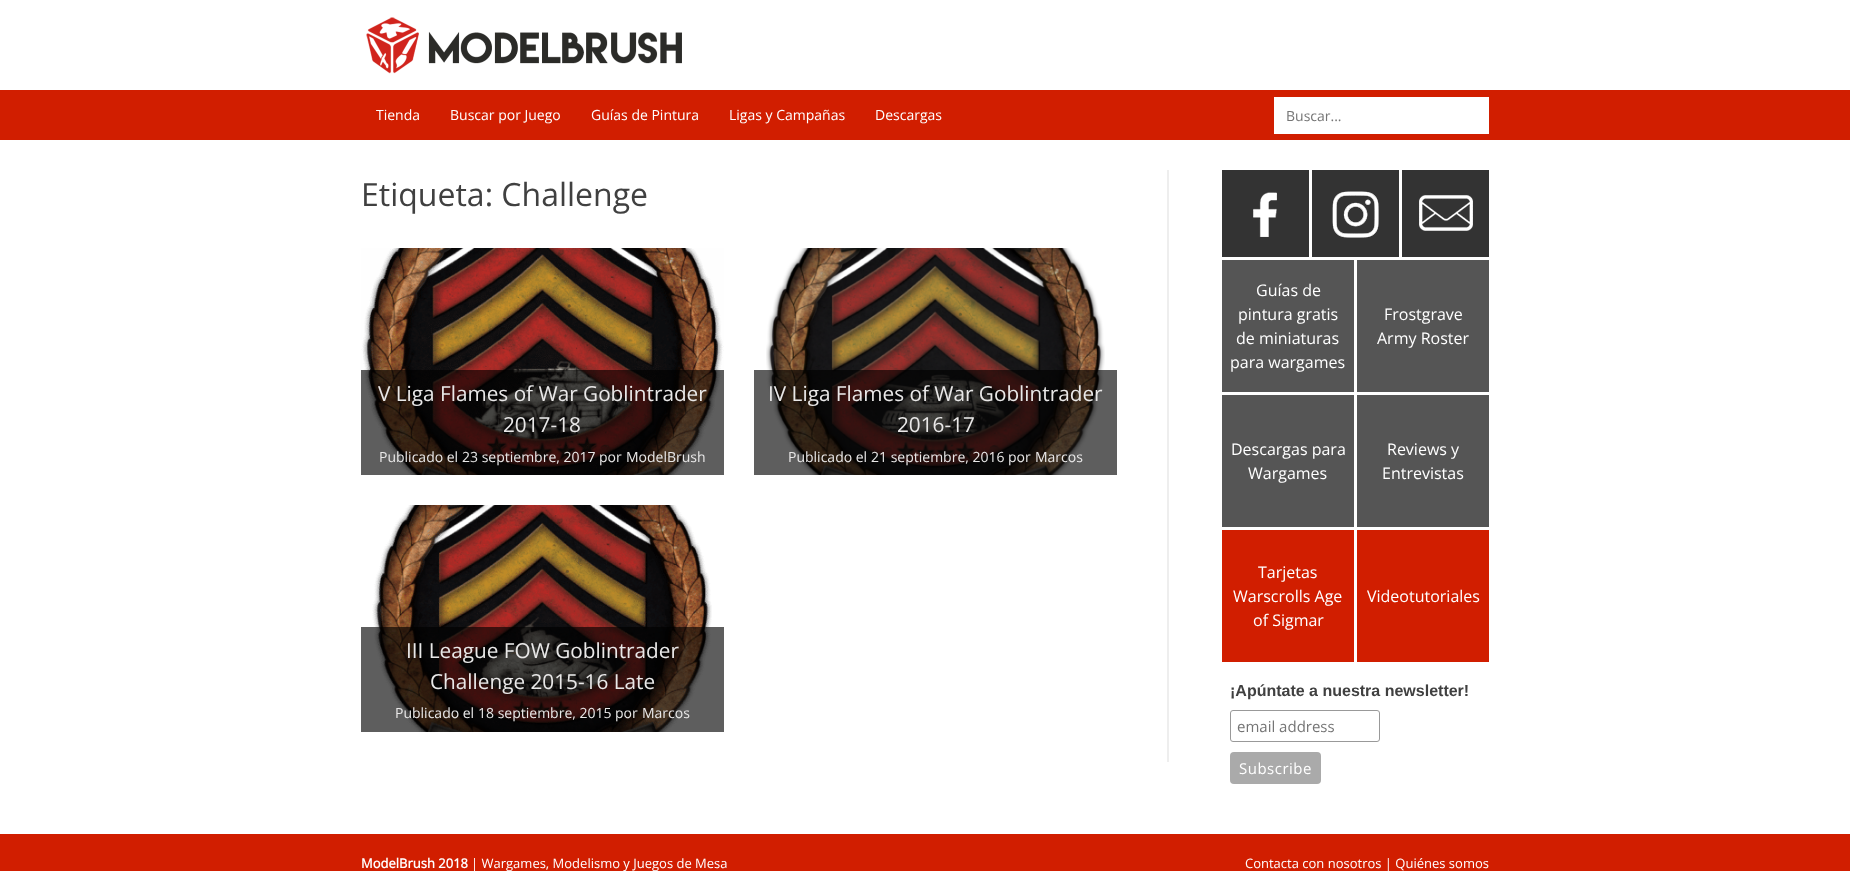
async function draw(canvas) {
  canvas.width = 1850;
  canvas.height = 871;
  const ctx = canvas.getContext('2d');
  ctx.miterLimit = 4;
  ctx.fontKerning = 'normal';
  function label(s, x, y, font, color) {
    ctx.font = font;
    ctx.fillStyle = color;
    ctx.fillText(s, x, y);
  }
  function rect(x, y, w, h, color) {
    ctx.fillStyle = color;
    ctx.fillRect(x, y, w, h);
  }
  function roundedRect(x, y, w, h, r, color) {
    ctx.fillStyle = color;
    ctx.beginPath();
    ctx.roundRect(x, y, w, h, r);
    ctx.fill();
  }
  async function image(src, x, y, w, h) {
    const img = new Image();
    img.src = src;
    await img.decode();
    ctx.drawImage(img, x, y, w, h);
  }

  rect(0, 0, 1850, 871, '#fff');
  await image('assets/img1.png', 366, 17, 316, 57);
  rect(0, 90, 1850, 50, '#d11e00');
  label('Tienda', 376, 120, '14px Open Sans', '#fff');
  label('Buscar por Juego', 450, 120, '14px Open Sans', '#fff');
  label('Guías de Pintura', 591, 120, '14px Open Sans', '#fff');
  label('Ligas y Campañas', 729, 120, '14px Open Sans', '#fff');
  label('Descargas', 875, 120, '14px Open Sans', '#fff');
  rect(1274, 97, 215, 37, '#fff');
  label('Buscar...', 1286, 121, '14px Open Sans', '#757575');
  rect(1167, 170, 2, 592, '#eee');
  label('Etiqueta: Challenge', 361, 206, '32px Open Sans', '#404040');
  await image('assets/img2.png', 361, 248, 363, 227);
  rect(361, 370, 363, 105, '#000000a1');
  label('V Liga Flames of War Goblintrader', 378, 401, '20.75px Open Sans', '#e9e8e8');
  label('2017-18', 503, 432, '20.75px Open Sans', '#e9e8e8');
  label('Publicado el', 379, 462, '14px Open Sans', '#e9e8e8');
  label('23 septiembre, 2017', 462, 462, '14px Open Sans', '#e9e8e8');
  label('por', 599, 462, '14px Open Sans', '#e9e8e8');
  label('ModelBrush', 626, 462, '14px Open Sans', '#e9e8e8');
  await image('assets/img3.png', 766, 248, 339, 227);
  rect(754, 370, 363, 105, '#000000a1');
  label('IV Liga Flames of War Goblintrader', 768, 401, '20.75px Open Sans', '#e9e8e8');
  label('2016-17', 897, 432, '20.75px Open Sans', '#e9e8e8');
  label('Publicado el', 788, 462, '14px Open Sans', '#e9e8e8');
  label('21 septiembre, 2016', 871, 462, '14px Open Sans', '#e9e8e8');
  label('por', 1008, 462, '14px Open Sans', '#e9e8e8');
  label('Marcos', 1035, 462, '14px Open Sans', '#e9e8e8');
  await image('assets/img4.png', 372, 505, 340, 227);
  rect(361, 627, 363, 105, '#000000a1');
  label('III League FOW Goblintrader', 406, 658, '20.75px Open Sans', '#e9e8e8');
  label('Challenge 2015-16 Late', 430, 689, '20.75px Open Sans', '#e9e8e8');
  label('Publicado el', 395, 718, '14px Open Sans', '#e9e8e8');
  label('18 septiembre, 2015', 478, 718, '14px Open Sans', '#e9e8e8');
  label('por', 615, 718, '14px Open Sans', '#e9e8e8');
  label('Marcos', 642, 718, '14px Open Sans', '#e9e8e8');
  rect(1222, 170, 87, 87, '#333');
  await image('assets/img5.png', 1253, 192, 24, 45);
  rect(1312, 170, 87, 87, '#333');
  await image('assets/img6.png', 1332, 191, 47, 47);
  rect(1402, 170, 87, 87, '#333');
  await image('assets/img7.png', 1419, 195, 54, 36);
  rect(1222, 260, 132, 132, '#555');
  label('Guías de', 1256, 296, '16px Open Sans', '#fff');
  label('pintura gratis', 1238, 320, '16px Open Sans', '#fff');
  label('de miniaturas', 1236, 344, '16px Open Sans', '#fff');
  label('para wargames', 1230, 368, '16px Open Sans', '#fff');
  rect(1357, 260, 132, 132, '#555');
  label('Frostgrave', 1384, 320, '16px Open Sans', '#fff');
  label('Army Roster', 1377, 344, '16px Open Sans', '#fff');
  rect(1222, 395, 132, 132, '#555');
  label('Descargas para', 1231, 455, '16px Open Sans', '#fff');
  label('Wargames', 1248, 479, '16px Open Sans', '#fff');
  rect(1357, 395, 132, 132, '#555');
  label('Reviews y', 1387, 455, '16px Open Sans', '#fff');
  label('Entrevistas', 1382, 479, '16px Open Sans', '#fff');
  rect(1222, 530, 132, 132, '#d11e00');
  label('Tarjetas', 1258, 578, '16px Open Sans', '#fff');
  label('Warscrolls Age', 1233, 602, '16px Open Sans', '#fff');
  label('of Sigmar', 1253, 626, '16px Open Sans', '#fff');
  rect(1357, 530, 132, 132, '#d11e00');
  label('Videotutoriales', 1367, 602, '16px Open Sans', '#fff');
  label('¡Apúntate a nuestra newsletter!', 1230, 696, 'bold 16px Liberation Sans', '#404040');
  ctx.beginPath();
  ctx.roundRect(1230.5, 710.5, 149, 31, 2.5);
  ctx.strokeStyle = '#999';
  ctx.stroke();
  label('email address', 1237, 732, '15px Open Sans', '#757575');
  roundedRect(1230, 752, 91, 32, 4, '#aaa');
  ctx.letterSpacing = '0.5px';
  label('Subscribe', 1239, 774, '15px Open Sans', '#fff');
  rect(0, 834, 1850, 37, '#d11e00');
  ctx.letterSpacing = '0px';
  label('ModelBrush 2018', 361, 868, 'bold 13px Open Sans', '#fff');
  label('| Wargames, Modelismo y Juegos de Mesa', 471, 868, '13px Open Sans', '#fff');
  label('Contacta con nosotros | Quiénes somos', 1245, 868, '13px Open Sans', '#fff');
}

draw(document.querySelector('canvas'));
